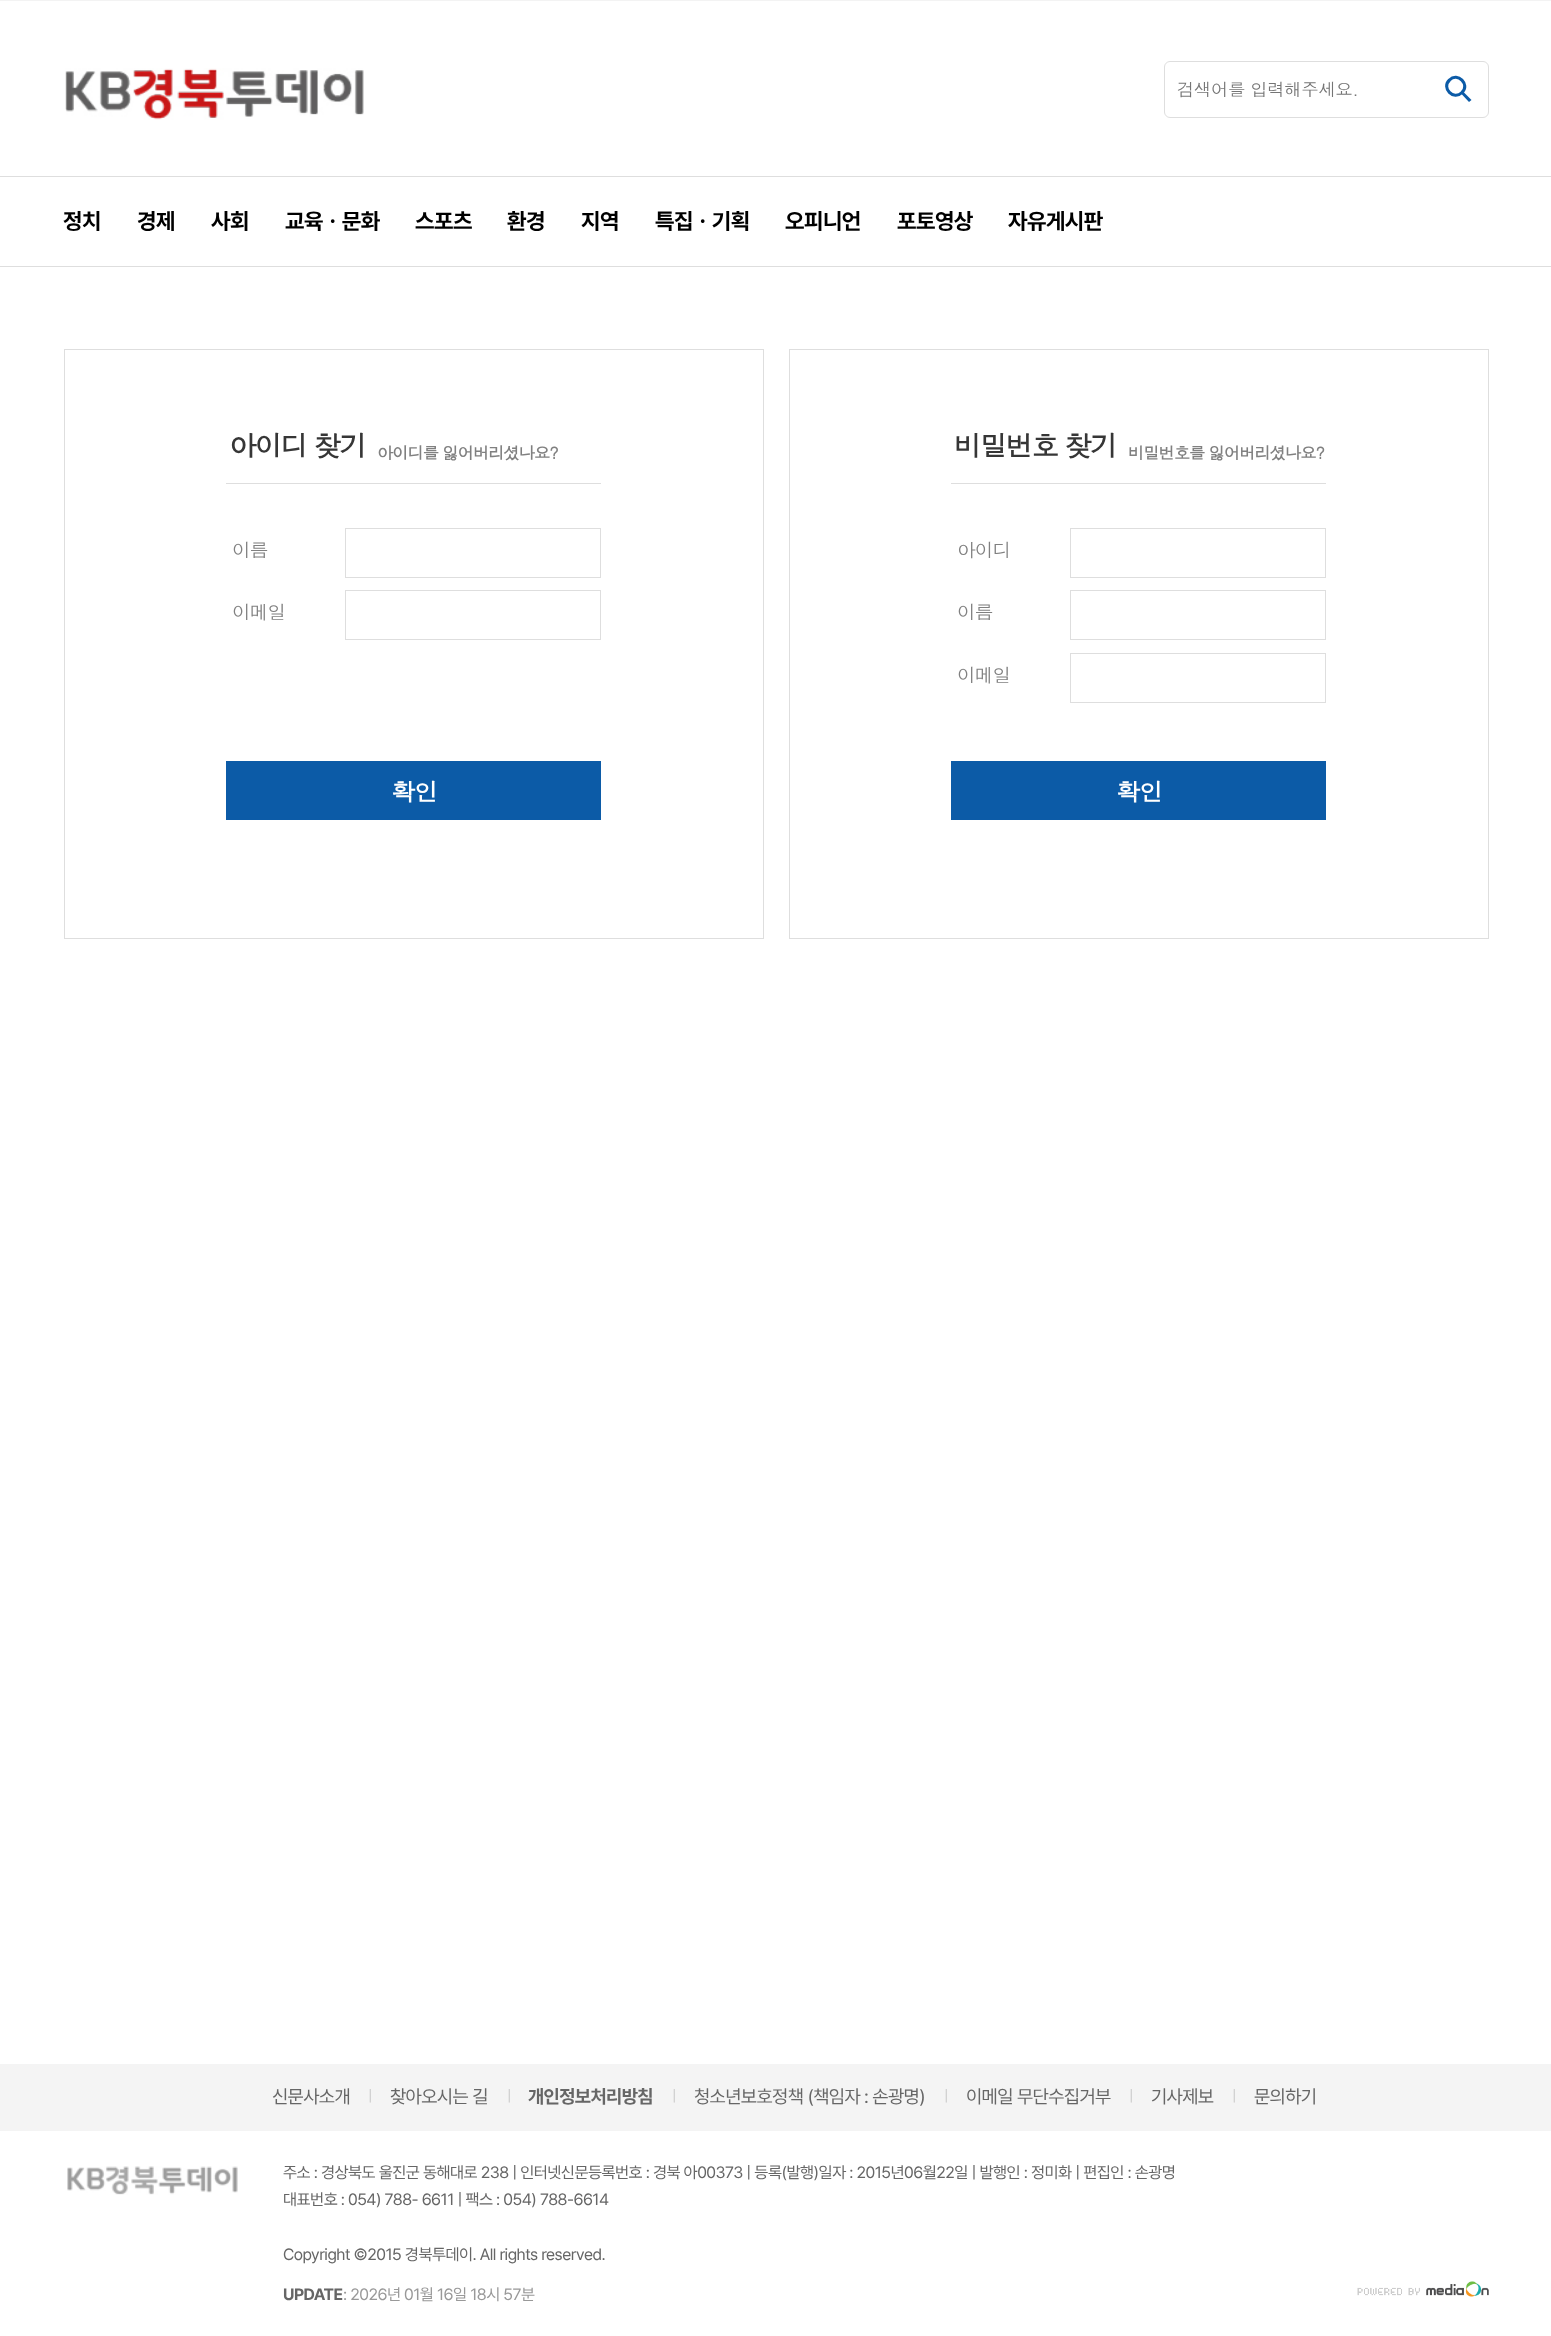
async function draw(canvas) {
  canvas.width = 1551;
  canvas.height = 2336;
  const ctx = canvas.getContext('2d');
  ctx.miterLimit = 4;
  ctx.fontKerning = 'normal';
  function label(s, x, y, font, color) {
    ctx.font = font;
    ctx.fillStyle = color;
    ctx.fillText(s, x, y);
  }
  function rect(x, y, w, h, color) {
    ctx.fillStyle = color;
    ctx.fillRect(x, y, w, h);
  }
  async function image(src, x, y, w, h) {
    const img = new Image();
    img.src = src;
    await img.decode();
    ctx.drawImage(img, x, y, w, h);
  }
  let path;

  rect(0, 0, 1551, 2336, '#fff');
  rect(0, 0, 1551, 1, '#f3f3f3');
  await image('assets/img1.png', 65, 68, 299, 52);
  ctx.beginPath();
  ctx.roundRect(1164.5, 61.5, 324, 56, 5.5);
  ctx.strokeStyle = '#dedede';
  ctx.stroke();
  ctx.letterSpacing = '-0.5px';
  label('검색어를 입력해주세요.', 1177, 96, '17.5px Dotum', '#757575');
  ctx.fillStyle = '#0c5ba7';
  path = new Path2D('M1463.5 92L1471.5 100L1469 102L1461.5 94Z');
  ctx.fill(path);
  path = new Path2D('M1449.5 80C1457.5 71.5 1470.5 84.5 1462 92.5C1453.5 101 1441 88 1449.5 80Z');
  ctx.strokeStyle = '#0c5ba7';
  ctx.lineWidth = 3.1;
  ctx.stroke(path);
  rect(0, 176, 1551, 1, '#dedede');
  rect(0, 266, 1551, 1, '#dedede');
  label('정치', 63, 229, 'bold 22.5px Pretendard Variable', '#000');
  label('경제', 137, 229, 'bold 22.5px Pretendard Variable', '#000');
  label('사회', 211, 229, 'bold 22.5px Pretendard Variable', '#000');
  label('교육ㆍ문화', 285, 229, 'bold 22.5px Pretendard Variable', '#000');
  label('스포츠', 415, 229, 'bold 22.5px Pretendard Variable', '#000');
  label('환경', 507, 229, 'bold 22.5px Pretendard Variable', '#000');
  label('지역', 581, 229, 'bold 22.5px Pretendard Variable', '#000');
  label('특집ㆍ기획', 655, 229, 'bold 22.5px Pretendard Variable', '#000');
  label('오피니언', 785, 229, 'bold 22.5px Pretendard Variable', '#000');
  label('포토영상', 897, 229, 'bold 22.5px Pretendard Variable', '#000');
  label('자유게시판', 1008, 229, 'bold 22.5px Pretendard Variable', '#000');
  ctx.strokeStyle = '#dedede';
  ctx.lineWidth = 1;
  ctx.strokeRect(64.5, 349.5, 699, 589);
  ctx.letterSpacing = '-1.75px';
  label('아이디 찾기', 229, 456, 'bold 27.5px Dotum', '#363636');
  ctx.letterSpacing = '-1px';
  label('아이디를 잃어버리셨나요?', 377, 459, 'bold 16.25px Dotum', '#808080');
  rect(226, 483, 375, 1, '#dedede');
  label('이름', 232, 557, '18.75px Dotum', '#808080');
  ctx.strokeRect(345.5, 528.5, 255, 49);
  label('이메일', 232, 619, '18.75px Dotum', '#808080');
  ctx.strokeRect(345.5, 590.5, 255, 49);
  rect(226, 761, 375, 59, '#0c5ba7');
  label('확인', 391, 801, 'bold 24px Dotum', '#fff');
  ctx.strokeRect(789.5, 349.5, 699, 589);
  ctx.letterSpacing = '-1.75px';
  label('비밀번호 찾기', 954, 456, 'bold 27.5px Dotum', '#363636');
  ctx.letterSpacing = '-1px';
  label('비밀번호를 잃어버리셨나요?', 1128, 459, 'bold 16.25px Dotum', '#808080');
  rect(951, 483, 375, 1, '#dedede');
  label('아이디', 957, 557, '18.75px Dotum', '#808080');
  ctx.strokeRect(1070.5, 528.5, 255, 49);
  label('이름', 957, 619, '18.75px Dotum', '#808080');
  ctx.strokeRect(1070.5, 590.5, 255, 49);
  label('이메일', 957, 682, '18.75px Dotum', '#808080');
  ctx.strokeRect(1070.5, 653.5, 255, 49);
  rect(951, 761, 375, 59, '#0c5ba7');
  label('확인', 1116, 801, 'bold 24px Dotum', '#fff');
  rect(0, 2064, 1551, 67, '#f4f4f4');
  ctx.letterSpacing = '-0.6px';
  label('신문사소개', 272, 2103, '18.75px Pretendard Variable', '#666');
  ctx.letterSpacing = '-0.5px';
  label('|', 368, 2101, '15px Pretendard Variable', '#ccc');
  ctx.letterSpacing = '-0.6px';
  label('찾아오시는 길', 390, 2103, '18.75px Pretendard Variable', '#666');
  ctx.letterSpacing = '-0.5px';
  label('|', 507, 2101, '15px Pretendard Variable', '#ccc');
  ctx.letterSpacing = '-0.6px';
  label('개인정보처리방침', 528, 2103, 'bold 18.75px Pretendard Variable', '#666');
  ctx.letterSpacing = '-0.5px';
  label('|', 672, 2101, '15px Pretendard Variable', '#ccc');
  ctx.letterSpacing = '-0.6px';
  label('청소년보호정책 (책임자 : 손광명)', 694, 2103, '18.75px Pretendard Variable', '#666');
  ctx.letterSpacing = '-0.5px';
  label('|', 944, 2101, '15px Pretendard Variable', '#ccc');
  ctx.letterSpacing = '-0.6px';
  label('이메일 무단수집거부', 966, 2103, '18.75px Pretendard Variable', '#666');
  ctx.letterSpacing = '-0.5px';
  label('|', 1129, 2101, '15px Pretendard Variable', '#ccc');
  ctx.letterSpacing = '-0.6px';
  label('기사제보', 1151, 2103, '18.75px Pretendard Variable', '#666');
  ctx.letterSpacing = '-0.5px';
  label('|', 1232, 2101, '15px Pretendard Variable', '#ccc');
  ctx.letterSpacing = '-0.6px';
  label('문의하기', 1254, 2103, '18.75px Pretendard Variable', '#666');
  await image('assets/img2.png', 67, 2166, 171, 29);
  ctx.letterSpacing = '-0.5px';
  label('주소 : 경상북도 울진군 동해대로 238 | 인터넷신문등록번호 : 경북 아00373 | 등록(발행)일자 : 2015년06월22일 | 발행인 : 정미화 | 편집인 : 손광명', 283, 2178, '16.25px Pretendard Variable', '#666');
  label('대표번호 : 054) 788- 6611 | 팩스 : 054) 788-6614', 283, 2205, '16.25px Pretendard Variable', '#666');
  label('Copyright ©2015 경북투데이. All rights reserved.', 283, 2260, '16.25px Pretendard Variable', '#666');
  label('UPDATE', 283, 2300, 'bold 16.25px Pretendard Variable', '#666');
  label(': 2026년 01월 16일 18시 57분', 343, 2300, '16.25px Pretendard Variable', '#999');
  await image('assets/img3.png', 1357, 2281, 132, 16);
}

draw(document.querySelector('canvas'));
